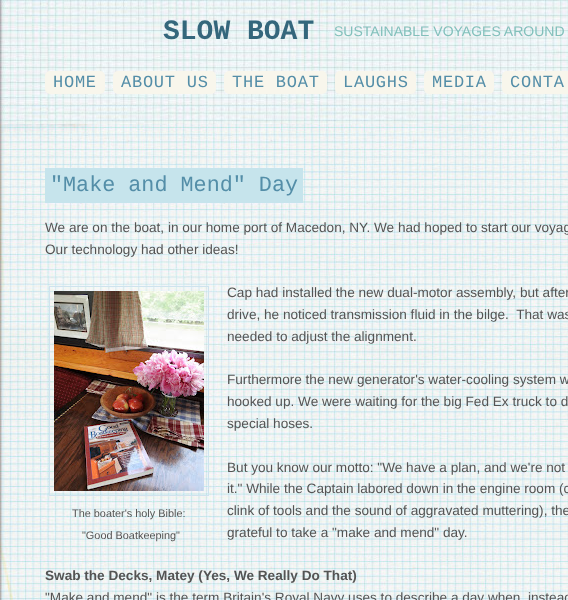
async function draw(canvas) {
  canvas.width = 568;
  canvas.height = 600;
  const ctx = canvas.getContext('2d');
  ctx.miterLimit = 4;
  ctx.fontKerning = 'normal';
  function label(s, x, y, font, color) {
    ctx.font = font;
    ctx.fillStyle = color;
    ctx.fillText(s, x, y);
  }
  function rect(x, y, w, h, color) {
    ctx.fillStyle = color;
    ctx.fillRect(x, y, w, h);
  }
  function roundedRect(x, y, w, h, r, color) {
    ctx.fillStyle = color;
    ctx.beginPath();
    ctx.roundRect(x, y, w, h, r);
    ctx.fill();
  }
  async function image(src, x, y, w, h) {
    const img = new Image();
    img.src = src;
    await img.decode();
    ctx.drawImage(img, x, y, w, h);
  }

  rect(0, 0, 568, 600, '#fff');
  await image('assets/img1.png', 0, 0, 568, 124);
  label('SLOW BOAT', 163, 39, 'bold 28px Liberation Mono', '#34677c');
  label('SUSTAINABLE VOYAGES AROUND', 334, 36, '14px Liberation Sans', '#82c0bb');
  roundedRect(45, 71, 60, 23, 5, '#f8f6ec');
  ctx.letterSpacing = '0.75px';
  label('HOME', 53, 87, '17px Liberation Mono', '#548ea8');
  roundedRect(113, 71, 103, 23, 5, '#f8f6ec');
  label('ABOUT US', 121, 87, '17px Liberation Mono', '#548ea8');
  roundedRect(224, 71, 103, 23, 5, '#f8f6ec');
  label('THE BOAT', 232, 87, '17px Liberation Mono', '#548ea8');
  roundedRect(335, 71, 81, 23, 5, '#f8f6ec');
  label('LAUGHS', 343, 87, '17px Liberation Mono', '#548ea8');
  roundedRect(424, 71, 70, 23, 5, '#f8f6ec');
  label('MEDIA', 432, 87, '17px Liberation Mono', '#548ea8');
  roundedRect(502, 71, 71, 23, 5, '#f8f6ec');
  label('CONTA', 510, 87, '17px Liberation Mono', '#548ea8');
  await image('assets/img2.png', 0, 124, 568, 476);
  rect(45, 168, 258, 35, '#c6e4ec');
  ctx.letterSpacing = '0px';
  label('"Make and Mend" Day', 50, 191, '21.75px Liberation Mono', '#548ea8');
  label('We are on the boat, in our home port of Macedon, NY. We had hoped to start our voyag', 45, 232, '13.6px Liberation Sans', '#545454');
  label('Our technology had other ideas!', 45, 254, '13.6px Liberation Sans', '#545454');
  label('Cap had installed the new dual-motor assembly, but after', 227, 297, '13.6px Liberation Sans', '#545454');
  label('drive, he noticed transmission fluid in the bilge.  That was', 227, 319, '13.6px Liberation Sans', '#545454');
  label('needed to adjust the alignment.', 227, 341, '13.6px Liberation Sans', '#545454');
  label('Furthermore the new generator\'s water-cooling system w', 227, 384, '13.6px Liberation Sans', '#545454');
  label('hooked up. We were waiting for the big Fed Ex truck to d', 227, 406, '13.6px Liberation Sans', '#545454');
  label('special hoses.', 227, 428, '13.6px Liberation Sans', '#545454');
  label('But you know our motto: "We have a plan, and we\'re not', 227, 472, '13.6px Liberation Sans', '#545454');
  label('it." While the Captain labored down in the engine room (c', 227, 493, '13.6px Liberation Sans', '#545454');
  ctx.strokeStyle = '#cfe3ee';
  ctx.strokeRect(49.5, 286.5, 159, 209);
  await image('assets/img3.png', 54, 291, 150, 200);
  label('The boater\'s holy Bible:', 72, 517, '10.9px Liberation Sans', '#545454');
  label('"Good Boatkeeping"', 82, 539, '10.9px Liberation Sans', '#545454');
  label('clink of tools and the sound of aggravated muttering), the', 227, 515, '13.6px Liberation Sans', '#545454');
  label('grateful to take a "make and mend" day.', 227, 537, '13.6px Liberation Sans', '#545454');
  label('Swab the Decks, Matey (Yes, We Really Do That)', 45, 580, 'bold 13.6px Liberation Sans', '#545454');
  label('"Make and mend" is the term Britain\'s Royal Navy uses to describe a day when, instead', 45, 602, '13.6px Liberation Sans', '#545454');
}

draw(document.querySelector('canvas'));
